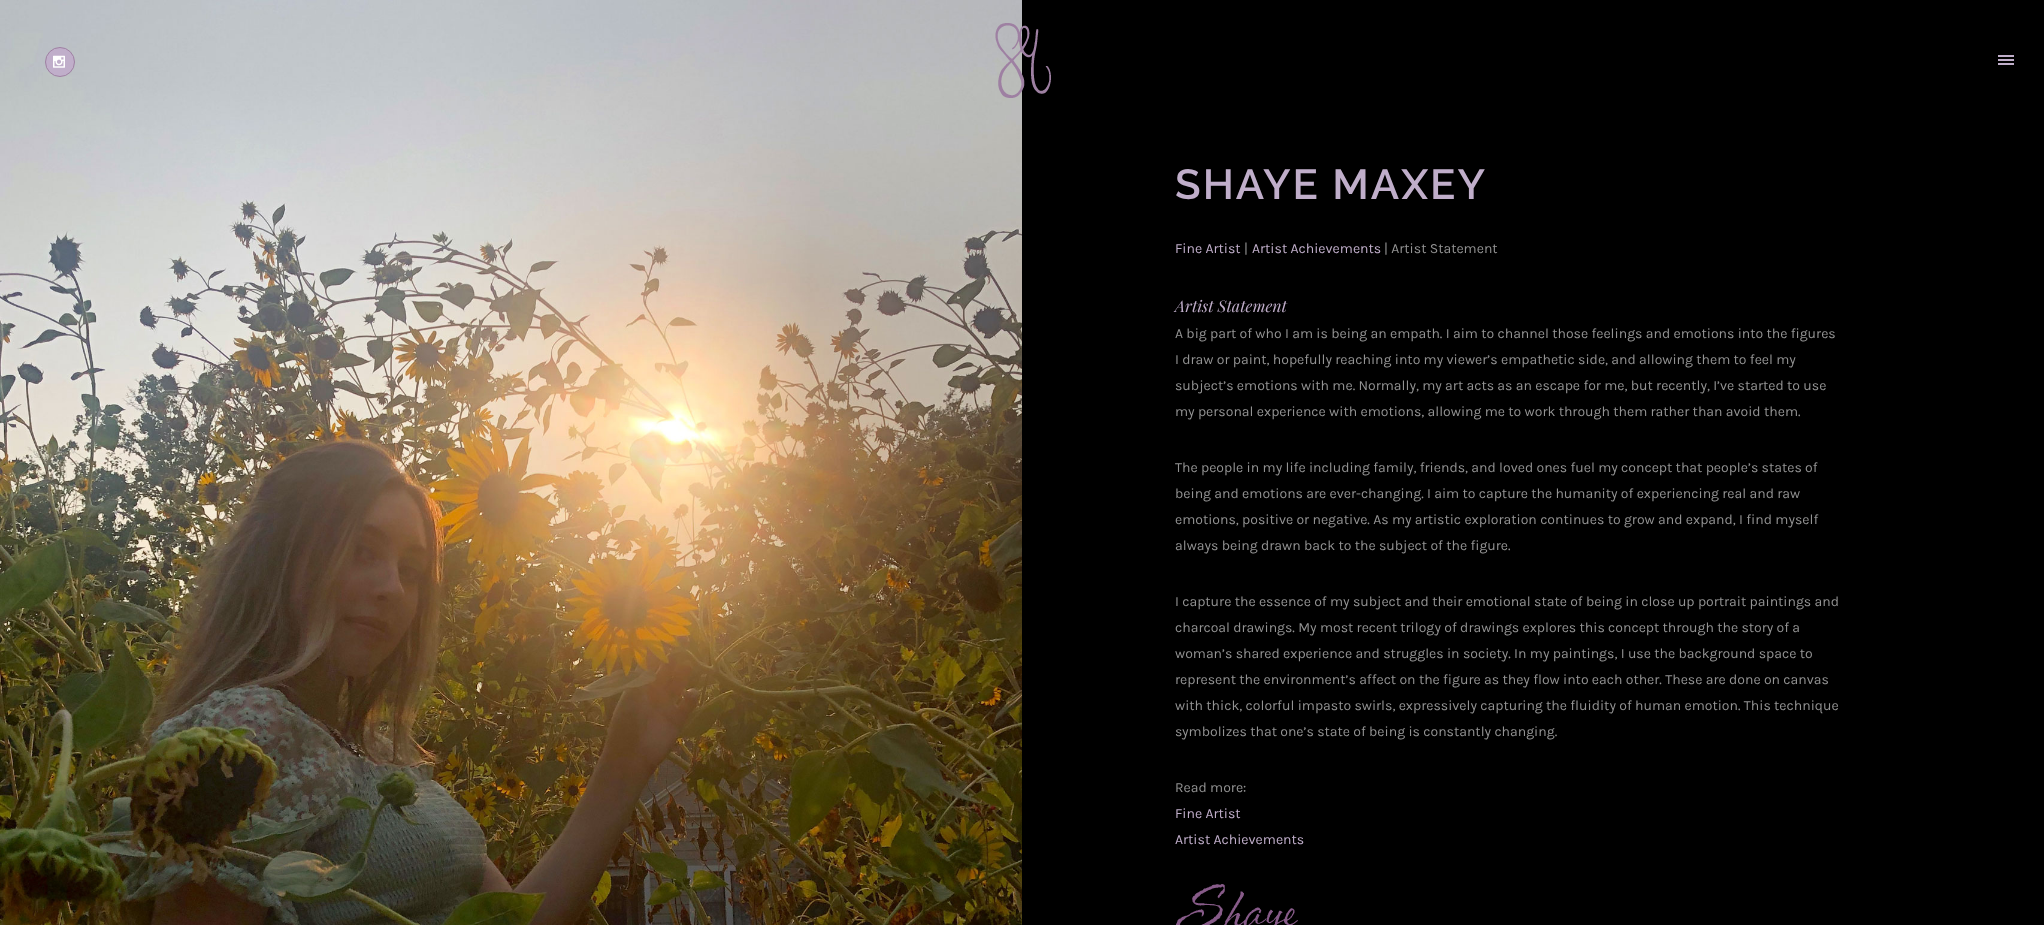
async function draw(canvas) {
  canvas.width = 2044;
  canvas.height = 925;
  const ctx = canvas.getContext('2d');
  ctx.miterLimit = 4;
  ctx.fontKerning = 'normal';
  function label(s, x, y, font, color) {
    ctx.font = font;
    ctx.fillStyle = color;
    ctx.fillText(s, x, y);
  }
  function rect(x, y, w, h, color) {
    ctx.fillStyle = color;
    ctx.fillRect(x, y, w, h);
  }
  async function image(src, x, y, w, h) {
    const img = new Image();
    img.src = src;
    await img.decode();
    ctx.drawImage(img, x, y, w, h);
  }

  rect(0, 0, 2044, 925, '#000');
  await image('assets/img3.png', 0, 0, 1022, 925);
  ctx.fillStyle = '#c0aeca';
  ctx.beginPath();
  ctx.arc(60, 62, 14.5, 0, 2 * Math.PI);
  ctx.fill();
  ctx.strokeStyle = '#9e80a2';
  ctx.stroke();
  await image('assets/img1.png', 53, 55, 12, 13);
  await image('assets/img2.png', 995, 23, 56, 75);
  rect(1998, 55, 16, 2, '#c0aeca');
  rect(1998, 59, 16, 2, '#c0aeca');
  rect(1998, 63, 16, 2, '#c0aeca');
  ctx.letterSpacing = '2px';
  label('SHAYE MAXEY', 1175, 199, '600 42px Raleway', '#c0aeca');
  ctx.letterSpacing = '0px';
  label('Fine Artist', 1175, 253, '14px Karla', '#c0aeca');
  label('|', 1244, 253, '14px Karla', '#939393');
  label('Artist Achievements', 1252, 253, '14px Karla', '#c0aeca');
  label('| Artist Statement', 1384, 253, '14px Karla', '#939393');
  label('Artist Statement', 1175, 312, 'italic 16px Playfair Display', '#c0aeca');
  label('A big part of who I am is being an empath. I aim to channel those feelings and emotions into the figures', 1175, 338, '14px Karla', '#939393');
  label('I draw or paint, hopefully reaching into my viewer’s empathetic side, and allowing them to feel my', 1175, 364, '14px Karla', '#939393');
  label('subject’s emotions with me. Normally, my art acts as an escape for me, but recently, I’ve started to use', 1175, 390, '14px Karla', '#939393');
  label('my personal experience with emotions, allowing me to work through them rather than avoid them.', 1175, 416, '14px Karla', '#939393');
  label('The people in my life including family, friends, and loved ones fuel my concept that people’s states of', 1175, 472, '14px Karla', '#939393');
  label('being and emotions are ever-changing. I aim to capture the humanity of experiencing real and raw', 1175, 498, '14px Karla', '#939393');
  label('emotions, positive or negative. As my artistic exploration continues to grow and expand, I find myself', 1175, 524, '14px Karla', '#939393');
  label('always being drawn back to the subject of the figure.', 1175, 550, '14px Karla', '#939393');
  label('I capture the essence of my subject and their emotional state of being in close up portrait paintings and', 1175, 606, '14px Karla', '#939393');
  label('charcoal drawings. My most recent trilogy of drawings explores this concept through the story of a', 1175, 632, '14px Karla', '#939393');
  label('woman’s shared experience and struggles in society. In my paintings, I use the background space to', 1175, 658, '14px Karla', '#939393');
  label('represent the environment’s affect on the figure as they flow into each other. These are done on canvas', 1175, 684, '14px Karla', '#939393');
  label('with thick, colorful impasto swirls, expressively capturing the fluidity of human emotion. This technique', 1175, 710, '14px Karla', '#939393');
  label('symbolizes that one’s state of being is constantly changing.', 1175, 736, '14px Karla', '#939393');
  label('Read more:', 1175, 792, '14px Karla', '#939393');
  label('Fine Artist', 1175, 818, '14px Karla', '#c0aeca');
  label('Artist Achievements', 1175, 844, '14px Karla', '#c0aeca');
  await image('assets/img4.png', 1176, 884, 122, 41);
}

draw(document.querySelector('canvas'));
